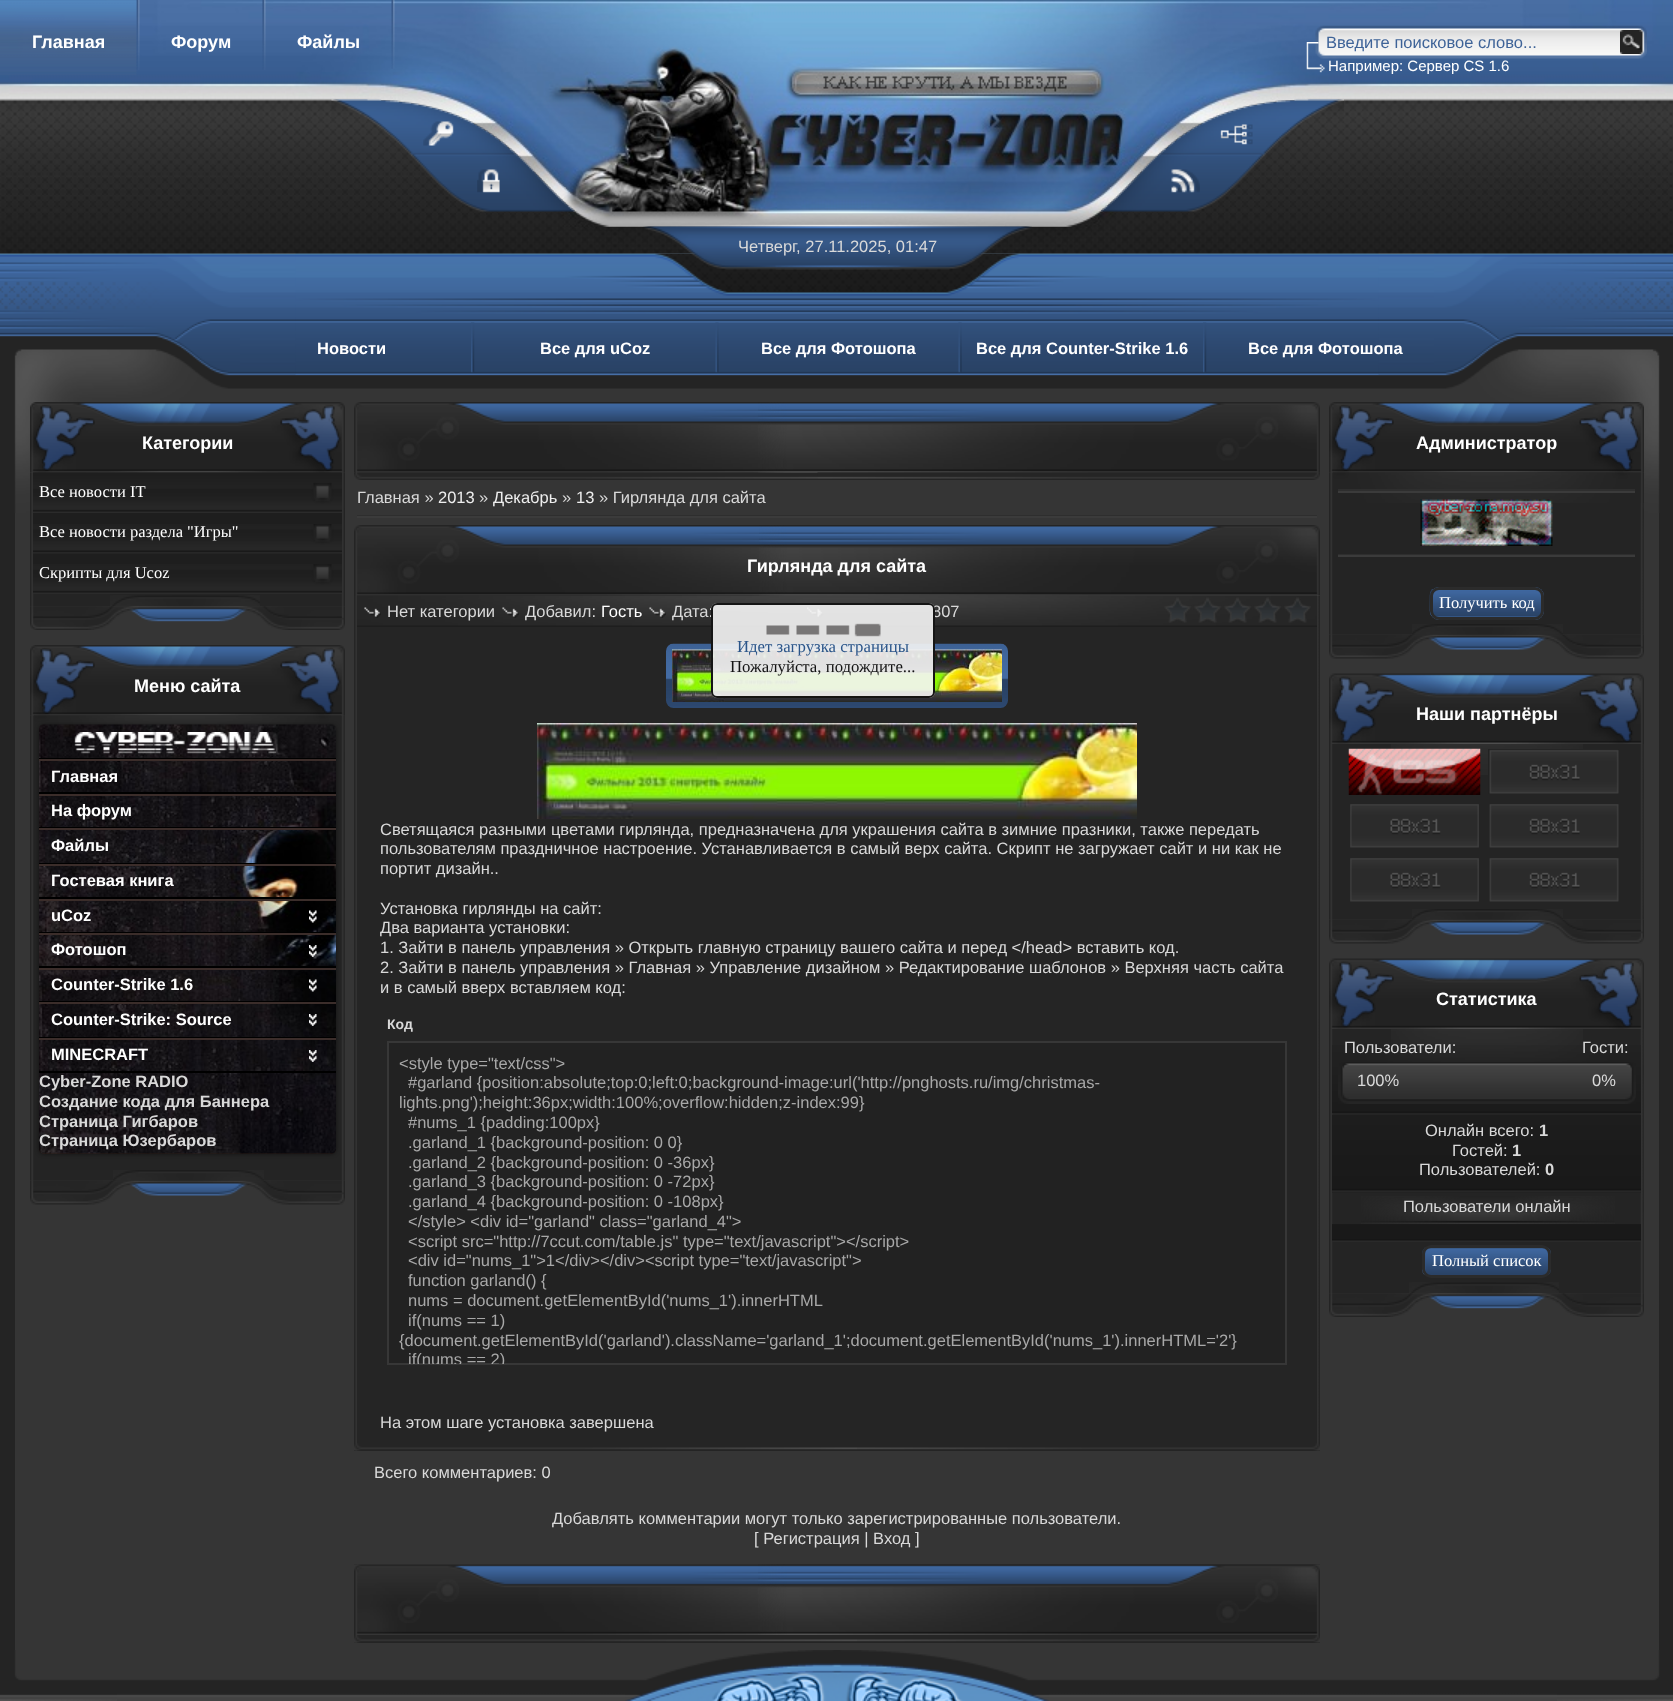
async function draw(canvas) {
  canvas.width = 1673;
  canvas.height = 1701;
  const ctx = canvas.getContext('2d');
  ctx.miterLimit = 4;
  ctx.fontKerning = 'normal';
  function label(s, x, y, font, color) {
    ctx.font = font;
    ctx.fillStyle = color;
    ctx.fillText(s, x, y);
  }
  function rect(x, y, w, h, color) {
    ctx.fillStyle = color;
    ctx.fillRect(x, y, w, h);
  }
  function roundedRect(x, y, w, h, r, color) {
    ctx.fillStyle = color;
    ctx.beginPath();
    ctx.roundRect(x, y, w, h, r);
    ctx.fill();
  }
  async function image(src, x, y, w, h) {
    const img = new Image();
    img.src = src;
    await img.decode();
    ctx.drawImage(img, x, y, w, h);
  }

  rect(0, 0, 1673, 1701, '#fff');
  await image('assets/img1.png', 0, 253, 1673, 1);
  await image('assets/img18.png', 0, 253, 1673, 260);
  await image('assets/img19.png', 295, 253, 1084, 122);
  await image('assets/img20.png', 0, 253, 240, 260);
  await image('assets/img21.png', 1434, 253, 239, 260);
  await image('assets/img2.png', 0, 0, 1673, 254);
  await image('assets/img3.png', 136, 0, 4, 70);
  await image('assets/img4.png', 0, 0, 137, 75);
  label('Главная', 32, 48, 'bold 18px Liberation Sans', '#fff');
  await image('assets/img5.png', 262, 0, 4, 70);
  label('Форум', 171, 48, 'bold 18px Liberation Sans', '#fff');
  await image('assets/img6.png', 391, 0, 4, 69);
  label('Файлы', 297, 48, 'bold 18px Liberation Sans', '#fff');
  await image('assets/img7.png', 1315, 25, 332, 34);
  label('Введите поисковое слово...', 1326, 48, '16.5px Liberation Sans', '#3e6398');
  await image('assets/img8.png', 1620, 30, 23, 24);
  await image('assets/img9.png', 1306, 42, 19, 31);
  label('Например: Сервер CS 1.6', 1328, 71, '15px Liberation Sans', '#fff');
  await image('assets/img10.png', 481, 113, 591, 114);
  await image('assets/img11.png', 331, 99, 244, 113);
  await image('assets/img12.png', 1101, 99, 243, 113);
  await image('assets/img13.png', 423, 121, 31, 25);
  await image('assets/img14.png', 1220, 124, 33, 21);
  await image('assets/img15.png', 477, 169, 23, 24);
  await image('assets/img16.png', 1171, 169, 29, 24);
  await image('assets/img17.png', 643, 226, 389, 44);
  label('Четверг, 27.11.2025, 01:47', 738, 252, '16.5px Liberation Sans', '#d9d9d9');
  rect(15, 513, 1644, 1137, '#353535');
  rect(0, 513, 15, 1137, '#242424');
  rect(1659, 513, 14, 1137, '#242424');
  label('Новости', 317, 354, 'bold 16.5px Liberation Sans', '#fff');
  await image('assets/img22.png', 471, 322, 4, 51);
  label('Все для uCoz', 540, 354, 'bold 16.5px Liberation Sans', '#fff');
  await image('assets/img23.png', 715, 322, 4, 51);
  label('Все для Фотошопа', 761, 354, 'bold 16.5px Liberation Sans', '#fff');
  await image('assets/img24.png', 958, 322, 4, 51);
  label('Все для Counter-Strike 1.6', 976, 354, 'bold 16.5px Liberation Sans', '#fff');
  await image('assets/img25.png', 1203, 322, 4, 51);
  label('Все для Фотошопа', 1248, 354, 'bold 16.5px Liberation Sans', '#fff');
  await image('assets/img26.png', 30, 606, 315, 24);
  await image('assets/img27.png', 30, 402, 315, 71);
  label('Категории', 142, 449, 'bold 18px Liberation Sans', '#fff');
  await image('assets/img28.png', 30, 472, 315, 134);
  await image('assets/img29.png', 33, 472, 308, 1);
  await image('assets/img30.png', 110, 595, 150, 11);
  await image('assets/img31.png', 33, 472, 309, 41);
  label('Все новости IT', 39, 497, '16.5px Liberation Serif', '#fff');
  rect(33, 513, 309, 51, '#1e1e1e');
  await image('assets/img32.png', 33, 524, 309, 30);
  label('Все новости раздела "Игры"', 39, 537, '16.5px Liberation Serif', '#fff');
  await image('assets/img33.png', 33, 564, 309, 30);
  label('Скрипты для Ucoz', 39, 578, '16.5px Liberation Serif', '#fff');
  await image('assets/img34.png', 30, 1180, 315, 25);
  await image('assets/img35.png', 30, 645, 315, 71);
  label('Меню сайта', 134, 692, 'bold 18px Liberation Sans', '#fff');
  await image('assets/img36.png', 30, 715, 315, 466);
  await image('assets/img37.png', 34, 715, 307, 31);
  await image('assets/img38.png', 113, 1170, 151, 11);
  ctx.fillStyle = '#00000080';
  ctx.filter = 'blur(2px)';
  ctx.beginPath();
  ctx.roundRect(39, 725, 297, 429, 5);
  ctx.fill();
  ctx.filter = 'none';
  roundedRect(39, 725, 297, 429, 5, '#291c16');
  await image('assets/img39.png', 39, 724, 297, 430);
  rect(39, 758, 297, 1, '#000');
  await image('assets/img40.png', 74, 732, 202, 22);
  rect(39, 759, 297, 2, '#3b2d2a');
  rect(39, 792, 297, 2, '#000');
  label('Главная', 51, 782, 'bold 16.5px Liberation Sans', '#fff');
  rect(39, 794, 297, 2, '#3b2d2a');
  rect(39, 827, 297, 1, '#000');
  label('На форум', 51, 816, 'bold 16.5px Liberation Sans', '#fff');
  rect(39, 828, 297, 2, '#3b2d2a');
  rect(39, 863, 297, 1, '#000');
  label('Файлы', 51, 851, 'bold 16.5px Liberation Sans', '#fff');
  rect(39, 864, 297, 2, '#3b2d2a');
  rect(39, 897, 297, 2, '#000');
  label('Гостевая книга', 51, 886, 'bold 16.5px Liberation Sans', '#fff');
  await image('assets/img41.png', 309, 910, 8, 13);
  rect(39, 899, 297, 2, '#3b2d2a');
  rect(39, 932, 297, 1, '#000');
  label('uCoz', 51, 921, 'bold 16.5px Liberation Sans', '#fff');
  await image('assets/img42.png', 309, 945, 8, 12);
  rect(39, 933, 297, 2, '#3b2d2a');
  rect(39, 966, 297, 2, '#000');
  label('Фотошоп', 51, 955, 'bold 16.5px Liberation Sans', '#fff');
  await image('assets/img43.png', 309, 979, 8, 13);
  rect(39, 968, 297, 2, '#3b2d2a');
  rect(39, 1001, 297, 1, '#000');
  label('Counter-Strike 1.6', 51, 990, 'bold 16.5px Liberation Sans', '#fff');
  await image('assets/img44.png', 309, 1014, 8, 12);
  rect(39, 1002, 297, 2, '#3b2d2a');
  rect(39, 1037, 297, 1, '#000');
  label('Counter-Strike: Source', 51, 1025, 'bold 16.5px Liberation Sans', '#fff');
  await image('assets/img45.png', 309, 1050, 8, 12);
  rect(39, 1038, 297, 2, '#3b2d2a');
  rect(39, 1071, 297, 2, '#000');
  label('MINECRAFT', 51, 1060, 'bold 16.5px Liberation Sans', '#fff');
  label('Cyber-Zone RADIO', 39, 1087, 'bold 16.5px Liberation Sans', '#d9d9d9');
  label('Создание кода для Баннера', 39, 1107, 'bold 16.5px Liberation Sans', '#d9d9d9');
  label('Страница Гигбаров', 39, 1127, 'bold 16.5px Liberation Sans', '#d9d9d9');
  label('Страница Юзербаров', 39, 1146, 'bold 16.5px Liberation Sans', '#d9d9d9');
  await image('assets/img46.png', 355, 472, 2, 1);
  await image('assets/img47.png', 1317, 472, 2, 1);
  await image('assets/img48.png', 354, 402, 966, 71);
  await image('assets/img50.png', 354, 472, 966, 8);
  await image('assets/img49.png', 758, 402, 562, 71);
  await image('assets/img51.png', 817, 472, 503, 8);
  label('Главная »', 357, 503, '16.5px Liberation Sans', '#d9d9d9');
  label('2013', 438, 503, '16.5px Liberation Sans', '#eee');
  label('»', 479, 503, '16.5px Liberation Sans', '#d9d9d9');
  label('Декабрь', 493, 503, '16.5px Liberation Sans', '#eee');
  label('»', 562, 503, '16.5px Liberation Sans', '#d9d9d9');
  label('13', 576, 503, '16.5px Liberation Sans', '#eee');
  label('» Гирлянда для сайта', 599, 503, '16.5px Liberation Sans', '#d9d9d9');
  rect(357, 515, 960, 1, '#2e2e2e');
  rect(357, 516, 960, 2, '#3b3b3b');
  rect(354, 595, 966, 856, '#252525');
  await image('assets/img52.png', 355, 595, 2, 856);
  await image('assets/img53.png', 1317, 595, 2, 856);
  await image('assets/img48.png', 354, 525, 966, 71);
  await image('assets/img54.png', 759, 525, 561, 71);
  label('Гирлянда для сайта', 747, 572, 'bold 18px Liberation Sans', '#fff');
  await image('assets/img55.png', 357, 595, 960, 32);
  await image('assets/img56.png', 364, 607, 17, 11);
  label('Нет категории', 387, 617, '16.5px Liberation Sans', '#d9d9d9');
  await image('assets/img57.png', 502, 607, 17, 11);
  label('Добавил:', 525, 617, '16.5px Liberation Sans', '#d9d9d9');
  label('Гость', 601, 617, '16.5px Liberation Sans', '#fff');
  await image('assets/img58.png', 649, 607, 17, 11);
  label('Дата:', 672, 617, '16.5px Liberation Sans', '#d9d9d9');
  await image('assets/img59.png', 807, 607, 17, 11);
  label('807', 932, 617, '16.5px Liberation Sans', '#d9d9d9');
  await image('assets/img60.png', 1164, 597, 147, 26);
  await image('assets/img61.png', 666, 643, 342, 65);
  await image('assets/img62.png', 672, 649, 330, 53);
  await image('assets/img63.png', 537, 723, 600, 96);
  label('Светящаяся разными цветами гирлянда, предназначена для украшения сайта в зимние празники, также передать', 380, 835, '16.5px Liberation Sans', '#d9d9d9');
  label('пользователям праздничное настроение. Устанавливается в самый верх сайта. Скрипт не загружает сайт и ни как не', 380, 854, '16.5px Liberation Sans', '#d9d9d9');
  label('портит дизайн..', 380, 874, '16.5px Liberation Sans', '#d9d9d9');
  label('Установка гирлянды на сайт:', 380, 914, '16.5px Liberation Sans', '#d9d9d9');
  label('Два варианта установки:', 380, 933, '16.5px Liberation Sans', '#d9d9d9');
  label('1. Зайти в панель управления » Открыть главную страницу вашего сайта и перед <\/head> вставить код.', 380, 953, '16.5px Liberation Sans', '#d9d9d9');
  label('2. Зайти в панель управления » Главная » Управление дизайном » Редактирование шаблонов » Верхняя часть сайта', 380, 973, '16.5px Liberation Sans', '#d9d9d9');
  label('и в самый вверх вставляем код:', 380, 993, '16.5px Liberation Sans', '#d9d9d9');
  label('Код', 387, 1029, 'bold 14px Liberation Sans', '#d9d9d9');
  ctx.fillStyle = '#222';
  ctx.beginPath();
  ctx.rect(388, 1042, 898, 322);
  ctx.fill();
  ctx.strokeStyle = '#373737';
  ctx.lineWidth = 2;
  ctx.stroke();
  label('<style type="text/css">', 399, 1069, '16.5px Liberation Sans', '#a8a8a8');
  label('#garland {position:absolute;top:0;left:0;background-image:url(\'http://pnghosts.ru/img/christmas-', 408, 1088, '16.5px Liberation Sans', '#a8a8a8');
  label('lights.png\');height:36px;width:100%;overflow:hidden;z-index:99}', 399, 1108, '16.5px Liberation Sans', '#a8a8a8');
  label('#nums_1 {padding:100px}', 408, 1128, '16.5px Liberation Sans', '#a8a8a8');
  label('.garland_1 {background-position: 0 0}', 408, 1148, '16.5px Liberation Sans', '#a8a8a8');
  label('.garland_2 {background-position: 0 -36px}', 408, 1168, '16.5px Liberation Sans', '#a8a8a8');
  label('.garland_3 {background-position: 0 -72px}', 408, 1187, '16.5px Liberation Sans', '#a8a8a8');
  label('.garland_4 {background-position: 0 -108px}', 408, 1207, '16.5px Liberation Sans', '#a8a8a8');
  label('<\/style> <div id="garland" class="garland_4">', 408, 1227, '16.5px Liberation Sans', '#a8a8a8');
  label('<script src="http://7ccut.com/table.js" type="text/javascript"><\/script>', 408, 1247, '16.5px Liberation Sans', '#a8a8a8');
  label('<div id="nums_1">1<\/div><\/div><script type="text/javascript">', 408, 1266, '16.5px Liberation Sans', '#a8a8a8');
  label('function garland() {', 408, 1286, '16.5px Liberation Sans', '#a8a8a8');
  label('nums = document.getElementById(\'nums_1\').innerHTML', 408, 1306, '16.5px Liberation Sans', '#a8a8a8');
  label('if(nums == 1)', 408, 1326, '16.5px Liberation Sans', '#a8a8a8');
  label('{document.getElementById(\'garland\').className=\'garland_1\';document.getElementById(\'nums_1\').innerHTML=\'2\'}', 399, 1346, '16.5px Liberation Sans', '#a8a8a8');
  ctx.save();
  ctx.beginPath();
  ctx.rect(389, 1043, 897, 321);
  ctx.clip();
  label('if(nums == 2)', 408, 1365, '16.5px Liberation Sans', '#a8a8a8');
  ctx.restore();
  label('На этом шаге установка завершена', 380, 1428, '16.5px Liberation Sans', '#d9d9d9');
  await image('assets/img64.png', 354, 1443, 966, 8);
  await image('assets/img65.png', 857, 1443, 463, 8);
  label('Всего комментариев: 0', 374, 1478, '16.5px Liberation Sans', '#d9d9d9');
  label('Добавлять комментарии могут только зарегистрированные пользователи.', 552, 1524, '16.5px Liberation Sans', '#d9d9d9');
  label('[ Регистрация | Вход ]', 754, 1544, '16.5px Liberation Sans', '#d9d9d9');
  rect(357, 1642, 963, 1, '#252525');
  rect(354, 1564, 3, 79, '#2c2c2c');
  await image('assets/img66.png', 354, 1564, 966, 71);
  await image('assets/img67.png', 758, 1564, 562, 71);
  await image('assets/img68.png', 354, 1635, 966, 8);
  await image('assets/img69.png', 857, 1635, 463, 8);
  await image('assets/img70.png', 1329, 634, 315, 25);
  await image('assets/img71.png', 1329, 402, 315, 71);
  label('Администратор', 1416, 449, 'bold 18px Liberation Sans', '#fff');
  await image('assets/img72.png', 1329, 472, 315, 163);
  await image('assets/img73.png', 1333, 472, 311, 31);
  await image('assets/img74.png', 1412, 624, 151, 11);
  rect(1338, 489, 297, 2, '#2e2e2e');
  rect(1338, 491, 297, 2, '#3b3b3b');
  await image('assets/img75.png', 1420, 499, 133, 47);
  rect(1338, 554, 297, 1, '#2e2e2e');
  rect(1338, 555, 297, 2, '#3b3b3b');
  roundedRect(1430, 587, 114, 33, 9, '#3e679f');
  await image('assets/img76.png', 1429, 589, 115, 28);
  ctx.beginPath();
  ctx.roundRect(1431.5, 588.5, 111, 30, 7.5);
  ctx.strokeStyle = '#2b2b2b';
  ctx.lineWidth = 3;
  ctx.stroke();
  label('Получить код', 1439, 608, '16.5px Liberation Serif', '#fff');
  await image('assets/img70.png', 1329, 919, 315, 25);
  await image('assets/img77.png', 1329, 673, 315, 71);
  label('Наши партнёры', 1416, 720, 'bold 18px Liberation Sans', '#fff');
  await image('assets/img78.png', 1329, 744, 315, 176);
  await image('assets/img79.png', 1391, 744, 192, 31);
  await image('assets/img74.png', 1412, 909, 151, 11);
  await image('assets/img80.png', 1348, 748, 133, 47);
  await image('assets/img81.png', 1488, 749, 131, 45);
  await image('assets/img82.png', 1350, 804, 129, 44);
  await image('assets/img83.png', 1489, 804, 130, 44);
  await image('assets/img82.png', 1350, 858, 129, 44);
  await image('assets/img83.png', 1489, 858, 130, 44);
  await image('assets/img84.png', 1329, 1293, 315, 24);
  await image('assets/img77.png', 1329, 958, 315, 71);
  label('Статистика', 1436, 1005, 'bold 18px Liberation Sans', '#fff');
  await image('assets/img85.png', 1329, 1029, 315, 264);
  await image('assets/img86.png', 1391, 1029, 192, 16);
  await image('assets/img87.png', 1409, 1282, 150, 11);
  await image('assets/img88.png', 1332, 1045, 309, 68);
  label('Пользователи:', 1344, 1053, '16.5px Liberation Sans', '#d9d9d9');
  label('Гости:', 1582, 1053, '16.5px Liberation Sans', '#d9d9d9');
  await image('assets/img89.png', 1338, 1062, 298, 42);
  await image('assets/img90.png', 1343, 1064, 290, 36);
  label('100%', 1357, 1086, '16.5px Liberation Sans', '#d9d9d9');
  label('0%', 1592, 1086, '16.5px Liberation Sans', '#d9d9d9');
  rect(1332, 1115, 309, 78, '#222');
  await image('assets/img91.png', 1332, 1115, 309, 77);
  label('Онлайн всего:', 1425, 1136, '16.5px Liberation Sans', '#d9d9d9');
  label('1', 1539, 1136, 'bold 16.5px Liberation Sans', '#d9d9d9');
  label('Гостей:', 1452, 1156, '16.5px Liberation Sans', '#d9d9d9');
  label('1', 1512, 1156, 'bold 16.5px Liberation Sans', '#d9d9d9');
  label('Пользователей:', 1419, 1175, '16.5px Liberation Sans', '#d9d9d9');
  label('0', 1545, 1175, 'bold 16.5px Liberation Sans', '#d9d9d9');
  await image('assets/img92.png', 1361, 1196, 254, 28);
  label('Пользователи онлайн', 1403, 1212, '16.5px Liberation Sans', '#d9d9d9');
  rect(1332, 1224, 309, 16, '#222');
  await image('assets/img93.png', 1332, 1224, 309, 18);
  await image('assets/img94.png', 1422, 1247, 129, 28);
  ctx.beginPath();
  ctx.roundRect(1423.5, 1246.5, 126, 30, 7.5);
  ctx.stroke();
  label('Полный список', 1432, 1266, '16.5px Liberation Serif', '#fff');
  await image('assets/img95.png', 0, 1650, 1673, 51);
  await image('assets/img96.png', 625, 1650, 424, 51);
  await image('assets/img97.png', 0, 1650, 117, 51);
  await image('assets/img98.png', 1557, 1650, 116, 51);
  roundedRect(711, 603, 224, 95, 6, '#f4f4f4e8');
  ctx.beginPath();
  ctx.roundRect(712, 604, 222, 93, 5);
  ctx.strokeStyle = '#000000e8';
  ctx.lineWidth = 2;
  ctx.stroke();
  await image('assets/img99.png', 766, 623, 115, 14);
  label('Идет загрузка страницы', 737, 652, '16.75px Liberation Serif', '#2b5589');
  label('Пожалуйста, подождите...', 730, 672, '16.75px Liberation Serif', '#141414');
}

draw(document.querySelector('canvas'));
